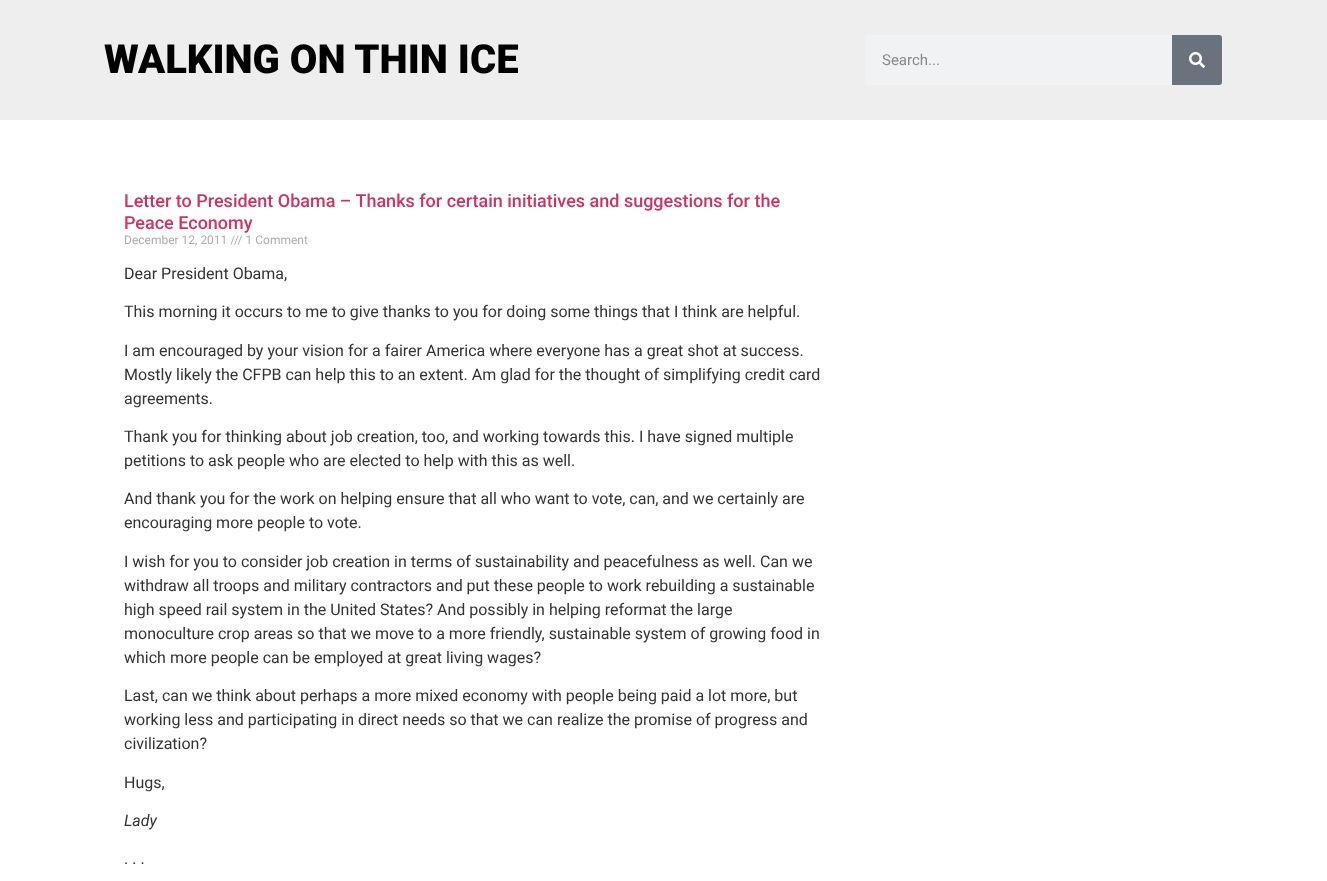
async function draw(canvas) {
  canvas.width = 1327;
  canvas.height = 881;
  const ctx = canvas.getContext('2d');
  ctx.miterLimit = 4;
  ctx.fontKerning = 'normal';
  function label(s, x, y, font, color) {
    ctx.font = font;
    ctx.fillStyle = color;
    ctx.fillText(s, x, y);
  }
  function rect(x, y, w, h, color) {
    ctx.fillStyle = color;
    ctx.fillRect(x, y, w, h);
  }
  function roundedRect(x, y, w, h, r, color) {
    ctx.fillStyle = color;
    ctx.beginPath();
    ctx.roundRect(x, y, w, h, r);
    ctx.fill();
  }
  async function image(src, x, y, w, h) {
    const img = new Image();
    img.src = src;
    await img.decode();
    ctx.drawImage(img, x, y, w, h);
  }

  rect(0, 0, 1327, 881, '#fff');
  rect(0, 0, 1327, 120, '#eee');
  label('WALKING ON THIN ICE', 104, 73, '900 40px Roboto', '#000');
  roundedRect(865, 35, 357, 50, 3, '#f1f2f3');
  label('Search...', 882, 65, '15px Roboto', '#868a8e');
  ctx.fillStyle = '#69727d';
  ctx.beginPath();
  ctx.roundRect(1172, 35, 50, 50, [0, 3, 3, 0]);
  ctx.fill();
  await image('assets/img1.png', 1189, 52, 16, 16);
  label('Letter to President Obama – Thanks for certain initiatives and suggestions for the', 124, 207, '500 18px Roboto', '#c36');
  label('Peace Economy', 124, 229, '500 18px Roboto', '#c36');
  label('December 12, 2011 /// 1 Comment', 124, 244, '12px Roboto', '#adadad');
  label('Dear President Obama,', 124, 279, '16px Roboto', '#333');
  label('This morning it occurs to me to give thanks to you for doing some things that I think are helpful.', 124, 317, '16px Roboto', '#333');
  label('I am encouraged by your vision for a fairer America where everyone has a great shot at success.', 124, 356, '16px Roboto', '#333');
  label('Mostly likely the CFPB can help this to an extent. Am glad for the thought of simplifying credit card', 124, 380, '16px Roboto', '#333');
  label('agreements.', 124, 404, '16px Roboto', '#333');
  label('Thank you for thinking about job creation, too, and working towards this. I have signed multiple', 124, 442, '16px Roboto', '#333');
  label('petitions to ask people who are elected to help with this as well.', 124, 466, '16px Roboto', '#333');
  label('And thank you for the work on helping ensure that all who want to vote, can, and we certainly are', 124, 504, '16px Roboto', '#333');
  label('encouraging more people to vote.', 124, 528, '16px Roboto', '#333');
  label('I wish for you to consider job creation in terms of sustainability and peacefulness as well. Can we', 124, 567, '16px Roboto', '#333');
  label('withdraw all troops and military contractors and put these people to work rebuilding a sustainable', 124, 591, '16px Roboto', '#333');
  label('high speed rail system in the United States? And possibly in helping reformat the large', 124, 615, '16px Roboto', '#333');
  label('monoculture crop areas so that we move to a more friendly, sustainable system of growing food in', 124, 639, '16px Roboto', '#333');
  label('which more people can be employed at great living wages?', 124, 663, '16px Roboto', '#333');
  label('Last, can we think about perhaps a more mixed economy with people being paid a lot more, but', 124, 701, '16px Roboto', '#333');
  label('working less and participating in direct needs so that we can realize the promise of progress and', 124, 725, '16px Roboto', '#333');
  label('civilization?', 124, 749, '16px Roboto', '#333');
  label('Hugs,', 124, 788, '16px Roboto', '#333');
  label('Lady', 124, 826, 'italic 16px Roboto', '#333');
  label('. . .', 124, 864, '16px Roboto', '#333');
}

draw(document.querySelector('canvas'));
